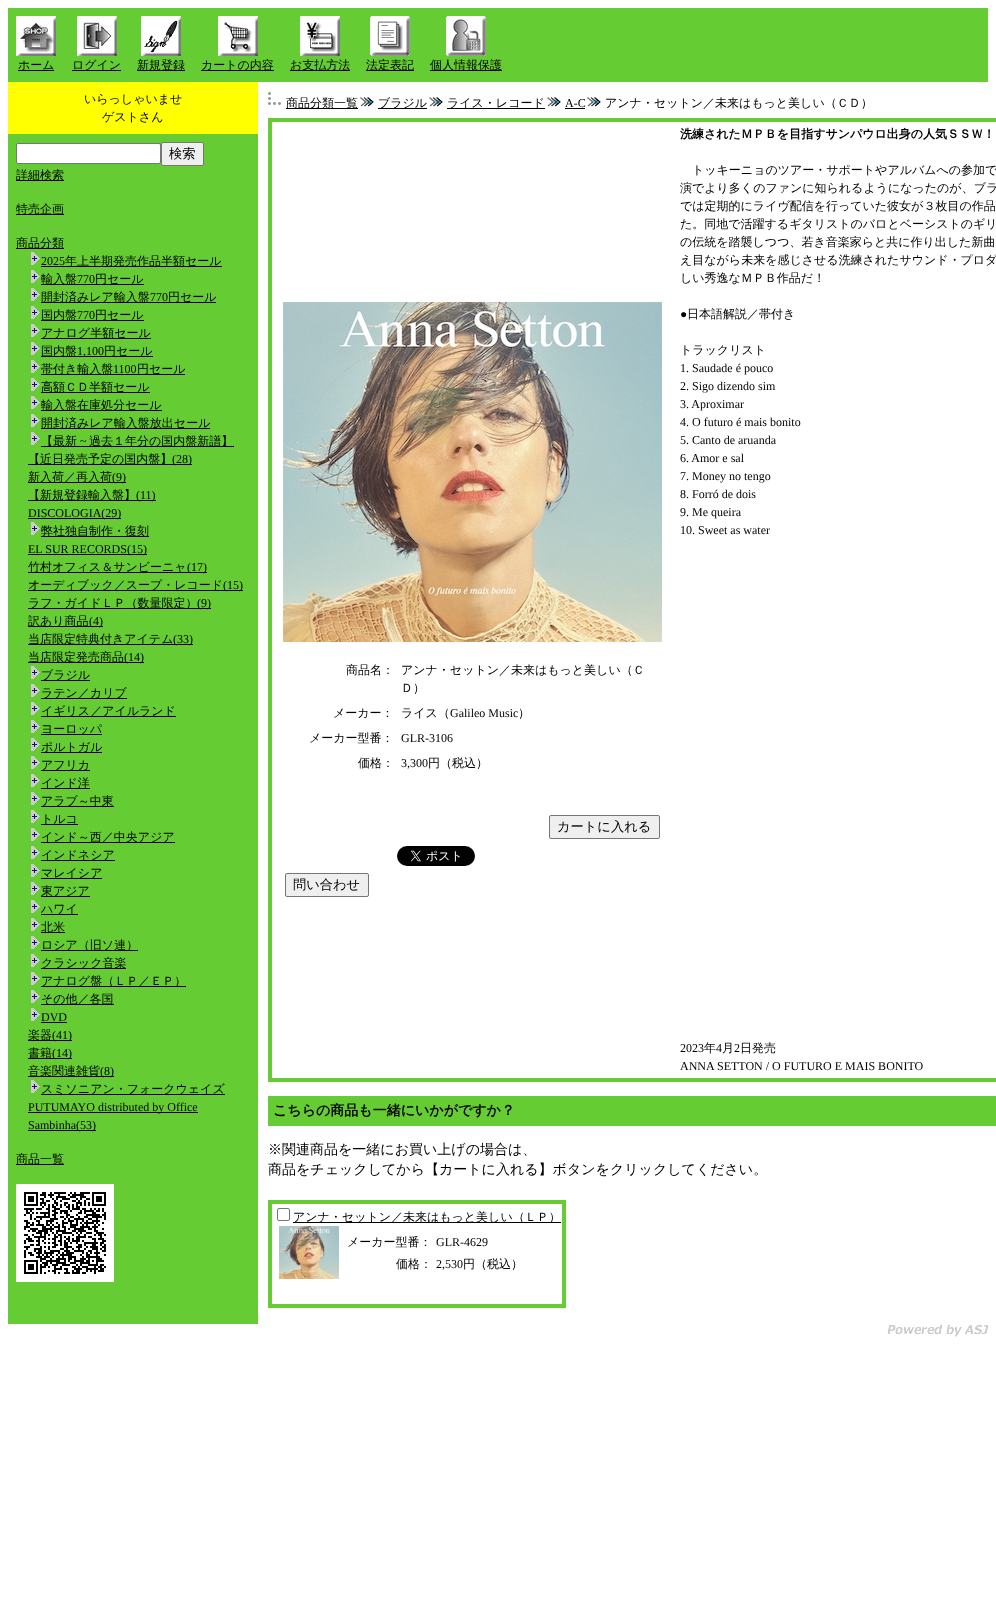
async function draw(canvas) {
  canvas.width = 996;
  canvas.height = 1617;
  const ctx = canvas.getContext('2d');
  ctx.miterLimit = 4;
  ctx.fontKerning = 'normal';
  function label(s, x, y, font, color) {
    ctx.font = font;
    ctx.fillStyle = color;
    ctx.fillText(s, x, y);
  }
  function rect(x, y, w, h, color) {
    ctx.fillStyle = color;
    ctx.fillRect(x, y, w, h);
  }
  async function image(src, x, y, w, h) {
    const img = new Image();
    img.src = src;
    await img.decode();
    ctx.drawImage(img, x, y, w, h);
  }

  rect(0, 0, 996, 1617, '#fff');
  rect(8, 8, 980, 74, '#6c3');
  await image('assets/img1.png', 16, 16, 40, 40);
  rect(18, 70, 36, 1, '#000');
  label('ホーム', 18, 69, '500 12px WenQuanYi Zen Hei', '#000');
  await image('assets/img2.png', 77, 16, 40, 40);
  rect(72, 70, 49, 1, '#000');
  label('ログイン', 72, 69, '500 12px WenQuanYi Zen Hei', '#000');
  await image('assets/img3.png', 141, 16, 40, 40);
  rect(137, 70, 48, 1, '#000');
  label('新規登録', 137, 69, '500 12px WenQuanYi Zen Hei', '#000');
  await image('assets/img4.png', 218, 16, 40, 40);
  rect(201, 70, 73, 1, '#000');
  label('カートの内容', 201, 69, '500 12px WenQuanYi Zen Hei', '#000');
  await image('assets/img5.png', 300, 16, 40, 40);
  rect(290, 70, 60, 1, '#000');
  label('お支払方法', 290, 69, '500 12px WenQuanYi Zen Hei', '#000');
  await image('assets/img6.png', 370, 16, 40, 40);
  rect(366, 70, 48, 1, '#000');
  label('法定表記', 366, 69, '500 12px WenQuanYi Zen Hei', '#000');
  await image('assets/img7.png', 446, 16, 40, 40);
  rect(430, 70, 72, 1, '#000');
  label('個人情報保護', 430, 69, '500 12px WenQuanYi Zen Hei', '#000');
  rect(8, 134, 250, 1190, '#6c3');
  rect(8, 82, 250, 52, '#ff0');
  label('いらっしゃいませ', 84, 103, '500 12px WenQuanYi Zen Hei', '#000');
  label('ゲストさん', 102, 121, '500 12px WenQuanYi Zen Hei', '#000');
  ctx.fillStyle = '#fff';
  ctx.beginPath();
  ctx.roundRect(16.5, 143.5, 144, 20, 1.5);
  ctx.fill();
  ctx.strokeStyle = '#767676';
  ctx.stroke();
  ctx.fillStyle = '#efefef';
  ctx.beginPath();
  ctx.roundRect(161.5, 142.5, 42, 23, 1.5);
  ctx.fill();
  ctx.stroke();
  label('検索', 169, 158, '500 13.25px WenQuanYi Zen Hei', '#000');
  rect(16, 180, 48, 1, '#000');
  label('詳細検索', 16, 179, '500 12px WenQuanYi Zen Hei', '#000');
  rect(16, 214, 48, 1, '#000');
  label('特売企画', 16, 213, '500 12px WenQuanYi Zen Hei', '#000');
  rect(16, 248, 48, 1, '#000');
  label('商品分類', 16, 247, '500 12px WenQuanYi Zen Hei', '#000');
  await image('assets/img8.png', 31, 252, 9, 13);
  label('2025', 41, 265, '12px Liberation Serif', '#000');
  rect(41, 266, 181, 1, '#000');
  label('年上半期発売作品半額セール', 65, 265, '500 12px WenQuanYi Zen Hei', '#000');
  await image('assets/img8.png', 31, 270, 9, 13);
  rect(41, 284, 103, 1, '#000');
  label('輸入盤', 41, 283, '500 12px WenQuanYi Zen Hei', '#000');
  label('770', 77, 283, '12px Liberation Serif', '#000');
  label('円セール', 95, 283, '500 12px WenQuanYi Zen Hei', '#000');
  await image('assets/img8.png', 31, 288, 9, 13);
  rect(41, 302, 175, 1, '#000');
  label('開封済みレア輸入盤', 41, 301, '500 12px WenQuanYi Zen Hei', '#000');
  label('770', 150, 301, '12px Liberation Serif', '#000');
  label('円セール', 168, 301, '500 12px WenQuanYi Zen Hei', '#000');
  await image('assets/img8.png', 31, 306, 9, 13);
  rect(41, 320, 103, 1, '#000');
  label('国内盤', 41, 319, '500 12px WenQuanYi Zen Hei', '#000');
  label('770', 77, 319, '12px Liberation Serif', '#000');
  label('円セール', 95, 319, '500 12px WenQuanYi Zen Hei', '#000');
  await image('assets/img8.png', 31, 324, 9, 13);
  rect(41, 338, 110, 1, '#000');
  label('アナログ半額セール', 41, 337, '500 12px WenQuanYi Zen Hei', '#000');
  await image('assets/img8.png', 31, 342, 9, 13);
  rect(41, 356, 112, 1, '#000');
  label('国内盤', 41, 355, '500 12px WenQuanYi Zen Hei', '#000');
  label('1,100', 77, 355, '12px Liberation Serif', '#000');
  label('円セール', 104, 355, '500 12px WenQuanYi Zen Hei', '#000');
  await image('assets/img8.png', 31, 360, 9, 13);
  rect(41, 374, 144, 1, '#000');
  label('帯付き輸入盤', 41, 373, '500 12px WenQuanYi Zen Hei', '#000');
  label('1100', 113, 373, '12px Liberation Serif', '#000');
  label('円セール', 137, 373, '500 12px WenQuanYi Zen Hei', '#000');
  await image('assets/img8.png', 31, 378, 9, 13);
  rect(41, 392, 109, 1, '#000');
  label('高額ＣＤ半額セール', 41, 391, '500 12px WenQuanYi Zen Hei', '#000');
  await image('assets/img8.png', 31, 396, 9, 13);
  rect(41, 410, 121, 1, '#000');
  label('輸入盤在庫処分セール', 41, 409, '500 12px WenQuanYi Zen Hei', '#000');
  await image('assets/img8.png', 31, 414, 9, 13);
  rect(41, 428, 169, 1, '#000');
  label('開封済みレア輸入盤放出セール', 41, 427, '500 12px WenQuanYi Zen Hei', '#000');
  await image('assets/img8.png', 31, 432, 9, 13);
  rect(41, 446, 193, 1, '#000');
  label('【最新', 41, 445, '500 12px WenQuanYi Zen Hei', '#000');
  label('~', 80, 445, '12px Liberation Serif', '#000');
  label('過去１年分の国内盤新譜】', 89, 445, '500 12px WenQuanYi Zen Hei', '#000');
  rect(28, 464, 164, 1, '#000');
  label('【近日発売予定の国内盤】', 28, 463, '500 12px WenQuanYi Zen Hei', '#000');
  label('(28)', 172, 463, '12px Liberation Serif', '#000');
  rect(28, 482, 98, 1, '#000');
  label('新入荷／再入荷', 28, 481, '500 12px WenQuanYi Zen Hei', '#000');
  label('(9)', 112, 481, '12px Liberation Serif', '#000');
  rect(28, 500, 128, 1, '#000');
  label('【新規登録輸入盤】', 28, 499, '500 12px WenQuanYi Zen Hei', '#000');
  label('(11)', 136, 499, '12px Liberation Serif', '#000');
  rect(28, 518, 93, 1, '#000');
  label('DISCOLOGIA(29)', 28, 517, '12px Liberation Serif', '#000');
  await image('assets/img8.png', 31, 522, 9, 13);
  rect(41, 536, 108, 1, '#000');
  label('弊社独自制作・復刻', 41, 535, '500 12px WenQuanYi Zen Hei', '#000');
  rect(28, 554, 119, 1, '#000');
  label('EL SUR RECORDS(15)', 28, 553, '12px Liberation Serif', '#000');
  rect(28, 572, 179, 1, '#000');
  label('竹村オフィス＆サンビーニャ', 28, 571, '500 12px WenQuanYi Zen Hei', '#000');
  label('(17)', 187, 571, '12px Liberation Serif', '#000');
  rect(28, 590, 215, 1, '#000');
  label('オーディブック／スープ・レコード', 28, 589, '500 12px WenQuanYi Zen Hei', '#000');
  label('(15)', 223, 589, '12px Liberation Serif', '#000');
  rect(28, 608, 183, 1, '#000');
  label('ラフ・ガイドＬＰ（数量限定）', 28, 607, '500 12px WenQuanYi Zen Hei', '#000');
  label('(9)', 197, 607, '12px Liberation Serif', '#000');
  rect(28, 626, 75, 1, '#000');
  label('訳あり商品', 28, 625, '500 12px WenQuanYi Zen Hei', '#000');
  label('(4)', 89, 625, '12px Liberation Serif', '#000');
  rect(28, 644, 165, 1, '#000');
  label('当店限定特典付きアイテム', 28, 643, '500 12px WenQuanYi Zen Hei', '#000');
  label('(33)', 173, 643, '12px Liberation Serif', '#000');
  rect(28, 662, 116, 1, '#000');
  label('当店限定発売商品', 28, 661, '500 12px WenQuanYi Zen Hei', '#000');
  label('(14)', 124, 661, '12px Liberation Serif', '#000');
  await image('assets/img8.png', 31, 666, 9, 13);
  rect(41, 680, 49, 1, '#000');
  label('ブラジル', 41, 679, '500 12px WenQuanYi Zen Hei', '#000');
  await image('assets/img8.png', 31, 684, 9, 13);
  rect(41, 698, 86, 1, '#000');
  label('ラテン／カリブ', 41, 697, '500 12px WenQuanYi Zen Hei', '#000');
  await image('assets/img8.png', 31, 702, 9, 13);
  rect(41, 716, 135, 1, '#000');
  label('イギリス／アイルランド', 41, 715, '500 12px WenQuanYi Zen Hei', '#000');
  await image('assets/img8.png', 31, 720, 9, 13);
  rect(41, 734, 61, 1, '#000');
  label('ヨーロッパ', 41, 733, '500 12px WenQuanYi Zen Hei', '#000');
  await image('assets/img8.png', 31, 738, 9, 13);
  rect(41, 752, 61, 1, '#000');
  label('ポルトガル', 41, 751, '500 12px WenQuanYi Zen Hei', '#000');
  await image('assets/img8.png', 31, 756, 9, 13);
  rect(41, 770, 49, 1, '#000');
  label('アフリカ', 41, 769, '500 12px WenQuanYi Zen Hei', '#000');
  await image('assets/img8.png', 31, 774, 9, 13);
  rect(41, 788, 49, 1, '#000');
  label('インド洋', 41, 787, '500 12px WenQuanYi Zen Hei', '#000');
  await image('assets/img8.png', 31, 792, 9, 13);
  rect(41, 806, 73, 1, '#000');
  label('アラブ～中東', 41, 805, '500 12px WenQuanYi Zen Hei', '#000');
  await image('assets/img8.png', 31, 810, 9, 13);
  rect(41, 824, 37, 1, '#000');
  label('トルコ', 41, 823, '500 12px WenQuanYi Zen Hei', '#000');
  await image('assets/img8.png', 31, 828, 9, 13);
  rect(41, 842, 134, 1, '#000');
  label('インド～西／中央アジア', 41, 841, '500 12px WenQuanYi Zen Hei', '#000');
  await image('assets/img8.png', 31, 846, 9, 13);
  rect(41, 860, 74, 1, '#000');
  label('インドネシア', 41, 859, '500 12px WenQuanYi Zen Hei', '#000');
  await image('assets/img8.png', 31, 864, 9, 13);
  rect(41, 878, 61, 1, '#000');
  label('マレイシア', 41, 877, '500 12px WenQuanYi Zen Hei', '#000');
  await image('assets/img8.png', 31, 882, 9, 13);
  rect(41, 896, 49, 1, '#000');
  label('東アジア', 41, 895, '500 12px WenQuanYi Zen Hei', '#000');
  await image('assets/img8.png', 31, 900, 9, 13);
  rect(41, 914, 37, 1, '#000');
  label('ハワイ', 41, 913, '500 12px WenQuanYi Zen Hei', '#000');
  await image('assets/img8.png', 31, 918, 9, 13);
  rect(41, 932, 24, 1, '#000');
  label('北米', 41, 931, '500 12px WenQuanYi Zen Hei', '#000');
  await image('assets/img8.png', 31, 936, 9, 13);
  rect(41, 950, 97, 1, '#000');
  label('ロシア（旧ソ連）', 41, 949, '500 12px WenQuanYi Zen Hei', '#000');
  await image('assets/img8.png', 31, 954, 9, 13);
  rect(41, 968, 85, 1, '#000');
  label('クラシック音楽', 41, 967, '500 12px WenQuanYi Zen Hei', '#000');
  await image('assets/img8.png', 31, 972, 9, 13);
  rect(41, 986, 145, 1, '#000');
  label('アナログ盤（ＬＰ／ＥＰ）', 41, 985, '500 12px WenQuanYi Zen Hei', '#000');
  await image('assets/img8.png', 31, 990, 9, 13);
  rect(41, 1004, 73, 1, '#000');
  label('その他／各国', 41, 1003, '500 12px WenQuanYi Zen Hei', '#000');
  await image('assets/img8.png', 31, 1008, 9, 13);
  label('DVD', 41, 1021, '12px Liberation Serif', '#000');
  rect(41, 1022, 26, 1, '#000');
  rect(28, 1040, 44, 1, '#000');
  label('楽器', 28, 1039, '500 12px WenQuanYi Zen Hei', '#000');
  label('(41)', 52, 1039, '12px Liberation Serif', '#000');
  rect(28, 1058, 44, 1, '#000');
  label('書籍', 28, 1057, '500 12px WenQuanYi Zen Hei', '#000');
  label('(14)', 52, 1057, '12px Liberation Serif', '#000');
  rect(28, 1076, 86, 1, '#000');
  label('音楽関連雑貨', 28, 1075, '500 12px WenQuanYi Zen Hei', '#000');
  label('(8)', 100, 1075, '12px Liberation Serif', '#000');
  await image('assets/img8.png', 31, 1080, 9, 13);
  rect(41, 1094, 184, 1, '#000');
  label('スミソニアン・フォークウェイズ', 41, 1093, '500 12px WenQuanYi Zen Hei', '#000');
  rect(28, 1112, 170, 1, '#000');
  label('PUTUMAYO distributed by Office', 28, 1111, '12px Liberation Serif', '#000');
  rect(28, 1130, 68, 1, '#000');
  label('Sambinha(53)', 28, 1129, '12px Liberation Serif', '#000');
  rect(16, 1164, 48, 1, '#000');
  label('商品一覧', 16, 1163, '500 12px WenQuanYi Zen Hei', '#000');
  await image('assets/img9.png', 16, 1184, 98, 98);
  await image('assets/img10.png', 268, 92, 13, 13);
  rect(286, 108, 72, 1, '#000');
  label('商品分類一覧', 286, 107, '500 12px WenQuanYi Zen Hei', '#000');
  await image('assets/img11.png', 360, 97, 14, 10);
  rect(378, 108, 49, 1, '#000');
  label('ブラジル', 378, 107, '500 12px WenQuanYi Zen Hei', '#000');
  await image('assets/img11.png', 429, 97, 14, 10);
  rect(447, 108, 98, 1, '#000');
  label('ライス・レコード', 447, 107, '500 12px WenQuanYi Zen Hei', '#000');
  await image('assets/img11.png', 547, 97, 14, 10);
  label('A-C', 565, 107, '12px Liberation Serif', '#000');
  rect(565, 108, 20, 1, '#000');
  await image('assets/img11.png', 587, 97, 14, 10);
  label('アンナ・セットン／未来はもっと美しい（ＣＤ）', 605, 107, '500 12px WenQuanYi Zen Hei', '#000');
  rect(268, 118, 728, 964, '#6c3');
  rect(272, 122, 724, 956, '#fff');
  await image('assets/img12.png', 283, 302, 379, 340);
  label('商品名：', 346, 674, '500 12px WenQuanYi Zen Hei', '#000');
  label('アンナ・セットン／未来はもっと美しい（Ｃ', 401, 674, '500 12px WenQuanYi Zen Hei', '#000');
  label('Ｄ）', 401, 692, '500 12px WenQuanYi Zen Hei', '#000');
  label('メーカー：', 333, 717, '500 12px WenQuanYi Zen Hei', '#000');
  label('ライス（', 401, 717, '500 12px WenQuanYi Zen Hei', '#000');
  label('Galileo Music', 450, 717, '12px Liberation Serif', '#000');
  label('）', 518, 717, '500 12px WenQuanYi Zen Hei', '#000');
  label('メーカー型番：', 309, 742, '500 12px WenQuanYi Zen Hei', '#000');
  label('GLR-3106', 401, 742, '12px Liberation Serif', '#000');
  label('価格：', 358, 767, '500 12px WenQuanYi Zen Hei', '#000');
  label('3,300', 401, 767, '12px Liberation Serif', '#000');
  label('円（税込）', 428, 767, '500 12px WenQuanYi Zen Hei', '#000');
  ctx.fillStyle = '#efefef';
  ctx.beginPath();
  ctx.roundRect(549.5, 815.5, 110, 23, 1.5);
  ctx.fill();
  ctx.stroke();
  label('カートに入れる', 557, 831, '500 13.25px WenQuanYi Zen Hei', '#000');
  await image('assets/img13.png', 397, 846, 78, 20);
  ctx.fillStyle = '#efefef';
  ctx.beginPath();
  ctx.roundRect(285.5, 873.5, 83, 23, 1.5);
  ctx.fill();
  ctx.stroke();
  label('問い合わせ', 293, 889, '500 13.25px WenQuanYi Zen Hei', '#000');
  ctx.wordSpacing = '-1px';
  label('洗練されたＭＰＢを目指すサンパウロ出身の人気ＳＳＷ！', 680, 138, 'bold 12px WenQuanYi Zen Hei', '#000');
  ctx.wordSpacing = '0px';
  label('トッキーニョのツアー・サポートやアルバムへの参加で', 692, 174, '500 12px WenQuanYi Zen Hei', '#000');
  label('演でより多くのファンに知られるようになったのが、ブラ', 680, 192, '500 12px WenQuanYi Zen Hei', '#000');
  label('では定期的にライヴ配信を行っていた彼女が３枚目の作品', 680, 210, '500 12px WenQuanYi Zen Hei', '#000');
  label('た。同地で活躍するギタリストのバロとベーシストのギリ', 680, 228, '500 12px WenQuanYi Zen Hei', '#000');
  label('の伝統を踏襲しつつ、若き音楽家らと共に作り出した新曲', 680, 246, '500 12px WenQuanYi Zen Hei', '#000');
  label('え目ながら未来を感じさせる洗練されたサウンド・プロダ', 680, 264, '500 12px WenQuanYi Zen Hei', '#000');
  label('しい秀逸なＭＰＢ作品だ！', 680, 282, '500 12px WenQuanYi Zen Hei', '#000');
  label('●', 680, 318, '12px Liberation Serif', '#000');
  label('日本語解説／帯付き', 687, 318, '500 12px WenQuanYi Zen Hei', '#000');
  label('トラックリスト', 680, 354, '500 12px WenQuanYi Zen Hei', '#000');
  label('1. Saudade é pouco', 680, 372, '12px Liberation Serif', '#000');
  label('2. Sigo dizendo sim', 680, 390, '12px Liberation Serif', '#000');
  label('3. Aproximar', 680, 408, '12px Liberation Serif', '#000');
  label('4. O futuro é mais bonito', 680, 426, '12px Liberation Serif', '#000');
  label('5. Canto de aruanda', 680, 444, '12px Liberation Serif', '#000');
  label('6. Amor e sal', 680, 462, '12px Liberation Serif', '#000');
  label('7. Money no tengo', 680, 480, '12px Liberation Serif', '#000');
  label('8. Forró de dois', 680, 498, '12px Liberation Serif', '#000');
  label('9. Me queira', 680, 516, '12px Liberation Serif', '#000');
  label('10. Sweet as water', 680, 534, '12px Liberation Serif', '#000');
  label('2023', 680, 1052, '12px Liberation Serif', '#000');
  label('年', 704, 1052, '500 12px WenQuanYi Zen Hei', '#000');
  label('4', 716, 1052, '12px Liberation Serif', '#000');
  label('月', 722, 1052, '500 12px WenQuanYi Zen Hei', '#000');
  label('2', 734, 1052, '12px Liberation Serif', '#000');
  label('日発売', 740, 1052, '500 12px WenQuanYi Zen Hei', '#000');
  label('ANNA SETTON / O FUTURO E MAIS BONITO', 680, 1070, '12px Liberation Serif', '#000');
  rect(268, 1096, 728, 30, '#6c3');
  label('こちらの商品も一緒にいかがですか？', 273, 1115, 'bold 14px WenQuanYi Zen Hei', '#000');
  label('※関連商品を一緒にお買い上げの場合は、', 268, 1154, '500 14px WenQuanYi Zen Hei', '#000');
  label('商品をチェックしてから【カートに入れる】ボタンをクリックしてください。', 268, 1174, '500 14px WenQuanYi Zen Hei', '#000');
  rect(268, 1200, 298, 108, '#6c3');
  rect(272, 1204, 290, 100, '#fff');
  ctx.beginPath();
  ctx.roundRect(277.5, 1208.5, 12, 12, 1.5);
  ctx.stroke();
  rect(293, 1222, 268, 1, '#000');
  label('アンナ・セットン／未来はもっと美しい（ＬＰ）', 293, 1221, '500 12px WenQuanYi Zen Hei', '#000');
  await image('assets/img14.png', 279, 1226, 60, 53);
  label('メーカー型番：', 347, 1246, '500 12px WenQuanYi Zen Hei', '#000');
  label('GLR-4629', 436, 1246, '12px Liberation Serif', '#000');
  label('価格：', 396, 1268, '500 12px WenQuanYi Zen Hei', '#000');
  label('2,530', 436, 1268, '12px Liberation Serif', '#000');
  label('円（税込）', 463, 1268, '500 12px WenQuanYi Zen Hei', '#000');
  await image('assets/img15.png', 887, 1324, 101, 13);
}

draw(document.querySelector('canvas'));
